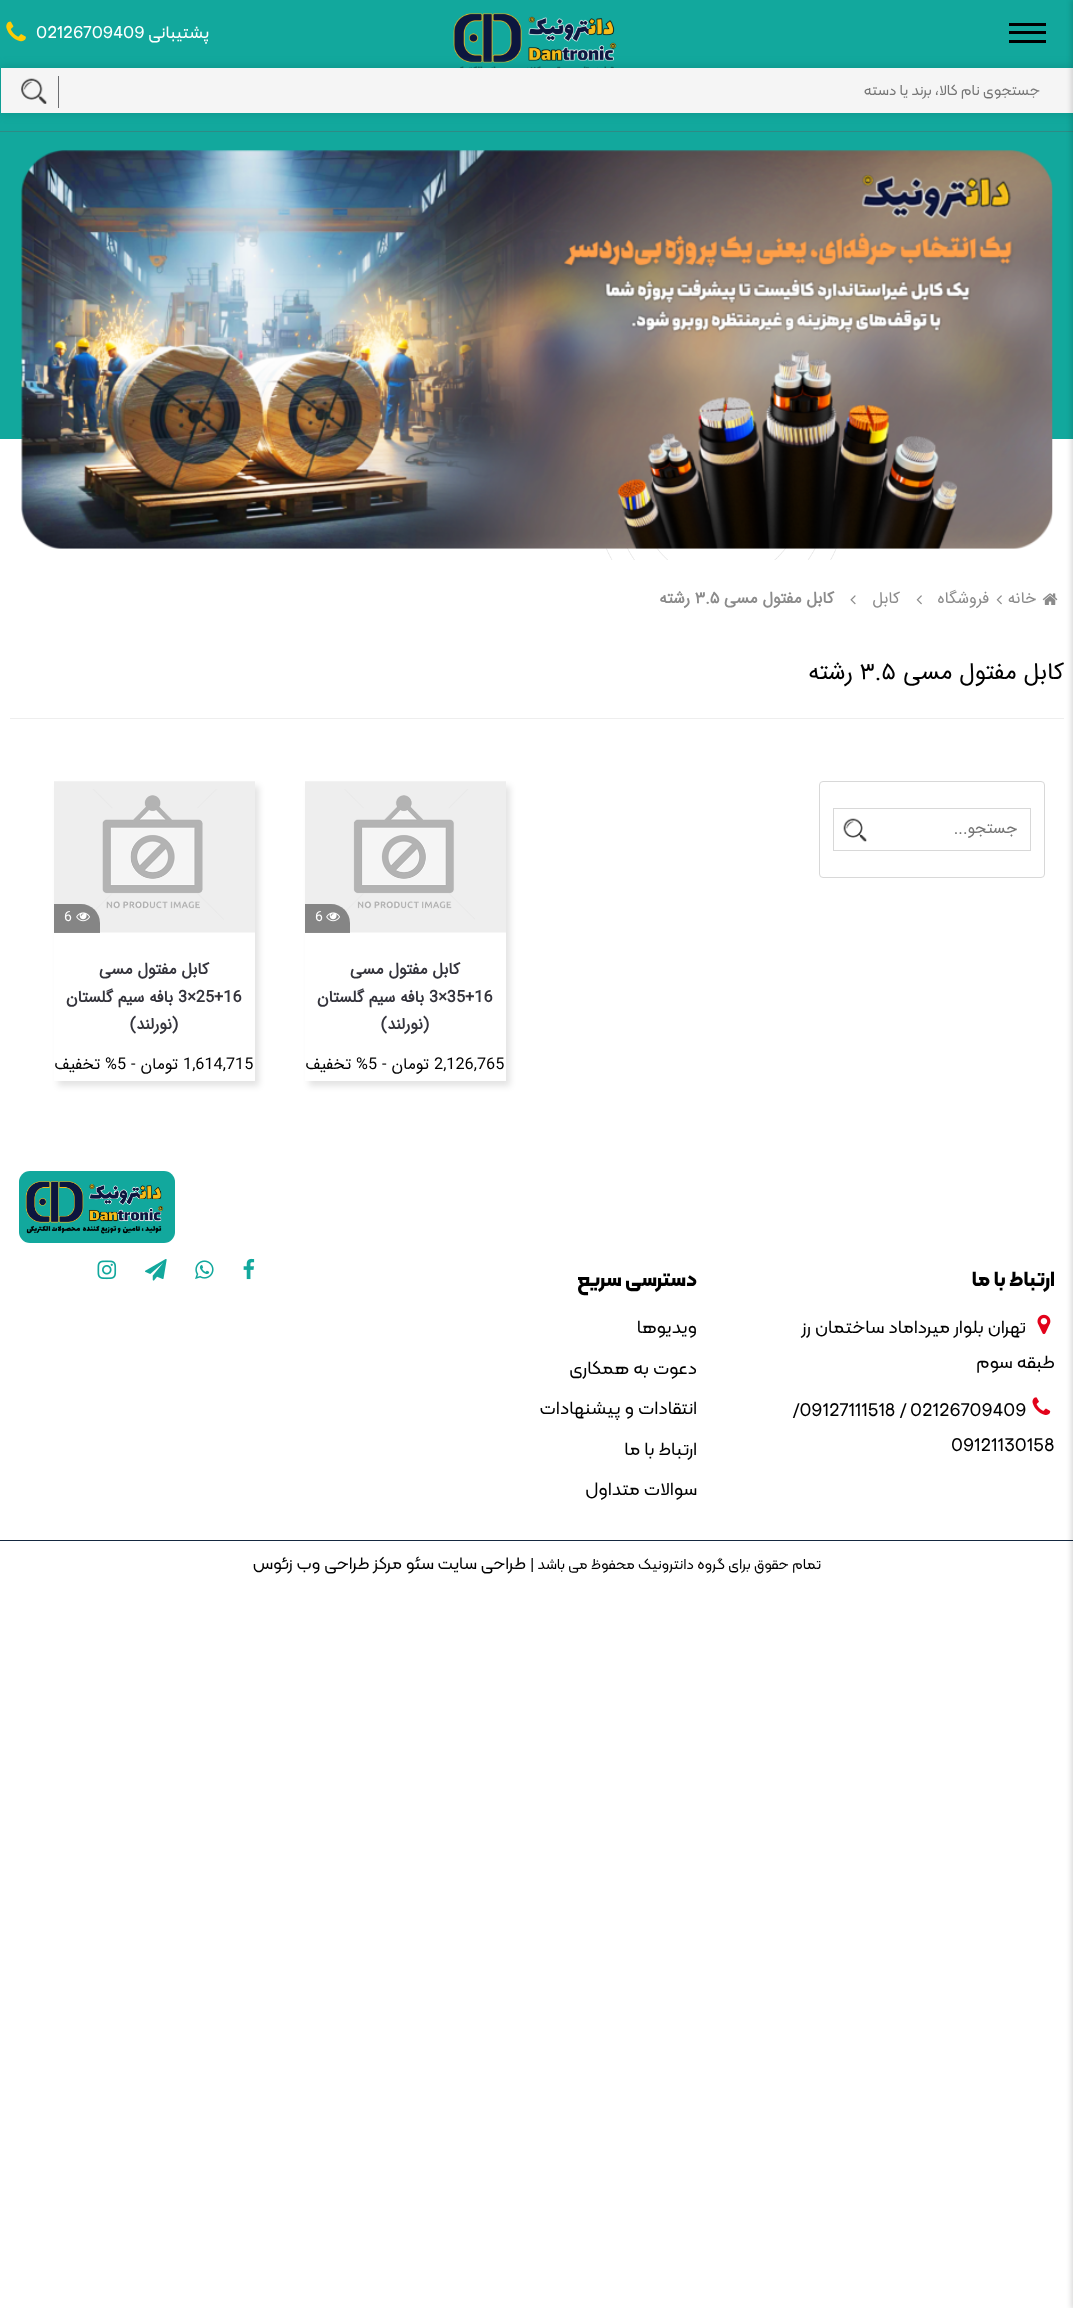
async function draw(canvas) {
  canvas.width = 1073;
  canvas.height = 2308;
  const ctx = canvas.getContext('2d');
  ctx.miterLimit = 4;
  ctx.fontKerning = 'normal';
  function label(s, x, y, font, color) {
    ctx.font = font;
    ctx.fillStyle = color;
    ctx.fillText(s, x, y);
  }
  function rect(x, y, w, h, color) {
    ctx.fillStyle = color;
    ctx.fillRect(x, y, w, h);
  }
  function roundedRect(x, y, w, h, r, color) {
    ctx.fillStyle = color;
    ctx.beginPath();
    ctx.roundRect(x, y, w, h, r);
    ctx.fill();
  }
  async function image(src, x, y, w, h) {
    const img = new Image();
    img.src = src;
    await img.decode();
    ctx.drawImage(img, x, y, w, h);
  }
  let path;

  rect(0, 0, 1073, 2308, '#fff');
  rect(0, 0, 1073, 439, '#12a89d');
  rect(0, 131, 1073, 1, '#2e8b85');
  await image('assets/img1.png', 453, 13, 164, 55);
  ctx.fillStyle = '#0d978d';
  ctx.filter = 'blur(4.5px)';
  ctx.beginPath();
  ctx.rect(0, 66, 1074, 48);
  ctx.fill();
  ctx.filter = 'none';
  rect(1, 68, 1072, 45, '#f5f5f5');
  rect(10, 718, 1054, 1, '#eee');
  rect(0, 1540, 1073, 1, '#152840');
  ctx.fillStyle = '#00000024';
  ctx.filter = 'blur(2.5px)';
  ctx.beginPath();
  ctx.rect(1071, 0, 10, 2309);
  ctx.fill();
  ctx.filter = 'none';
  rect(1009, 23, 37, 3, '#000');
  rect(1009, 31, 37, 3, '#000');
  rect(1009, 40, 37, 3, '#000');
  ctx.direction = 'rtl';
  label('پشتیبانی', 209, 38, '17.5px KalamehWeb', '#fff');
  ctx.direction = 'ltr';
  label('02126709409', 36, 38, '17.5px KalamehWeb', '#fff');
  await image('assets/img2.png', 6, 21, 20, 21);
  ctx.direction = 'rtl';
  label('جستجوی نام کالا، برند یا دسته', 1040, 95, '15px KalamehWeb', '#757575');
  await image('assets/img3.png', 21, 78, 26, 26);
  rect(58, 76, 1, 32, '#6d6e71');
  await image('assets/img5.png', 606, 548, 231, 12);
  await image('assets/img4.png', 21, 150, 1032, 399);
  await image('assets/img6.png', 1042, 593, 16, 12);
  label('خانه', 1036, 603, '16.25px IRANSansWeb', '#8b8b8b');
  await image('assets/img7.png', 996, 595, 6, 10);
  label('فروشگاه', 989, 603, '16.25px IRANSansWeb', '#8b8b8b');
  await image('assets/img7.png', 916, 595, 6, 10);
  label('کابل', 900, 603, '16.25px IRANSansWeb', '#8b8b8b');
  await image('assets/img8.png', 850, 595, 6, 10);
  label('کابل مفتول مسی', 834, 603, 'bold 16.25px IRANSansWeb', '#8b8b8b');
  ctx.direction = 'ltr';
  label('۳.۵', 695, 603, 'bold 16.25px IRANSansWeb', '#8b8b8b');
  ctx.direction = 'rtl';
  label('رشته', 690, 603, 'bold 16.25px IRANSansWeb', '#8b8b8b');
  label('کابل مفتول مسی', 1064, 679, '23.75px IRANSansWeb', '#000');
  ctx.direction = 'ltr';
  label('۳.۵', 860, 679, '23.75px IRANSansWeb', '#000');
  ctx.direction = 'rtl';
  label('رشته', 853, 679, '23.75px IRANSansWeb', '#000');
  ctx.beginPath();
  ctx.roundRect(819.5, 781.5, 225, 96, 3.5);
  ctx.strokeStyle = '#d8d8d8';
  ctx.stroke();
  ctx.strokeRect(833.5, 808.5, 197, 42);
  label('جستجو...', 1017, 833, '16.25px IRANSansWeb', '#757575');
  await image('assets/img9.png', 843, 818, 24, 24);
  ctx.save();
  path = new Path2D('M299 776H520V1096H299ZM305 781H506V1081H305Z');
  ctx.clip(path, 'evenodd');
  ctx.fillStyle = '#0000001c';
  ctx.filter = 'blur(3px)';
  ctx.beginPath();
  ctx.rect(309, 786, 201, 300);
  ctx.fill();
  ctx.filter = 'none';
  ctx.restore();
  await image('assets/img10.png', 305, 781, 201, 152);
  ctx.fillStyle = '#00000070';
  ctx.beginPath();
  ctx.roundRect(305, 904, 45, 29, [0, 19, 0, 0]);
  ctx.fill();
  await image('assets/img11.png', 326, 912, 14, 10);
  ctx.direction = 'ltr';
  label('6', 315, 921, '14px IRANSansWeb', '#fff');
  ctx.direction = 'rtl';
  label('کابل مفتول مسی', 460, 974, 'bold 16.25px IRANSansWeb', '#34343c');
  ctx.direction = 'ltr';
  label('3×35+16', 429, 1002, 'bold 16.25px IRANSansWeb', '#34343c');
  ctx.direction = 'rtl';
  label('بافه سیم گلستان', 424, 1002, 'bold 16.25px IRANSansWeb', '#34343c');
  label('(نورلند)', 429, 1029, 'bold 16.25px IRANSansWeb', '#34343c');
  ctx.direction = 'ltr';
  label('2,126,765', 434, 1069, '16.25px IRANSansWeb', '#000');
  ctx.direction = 'rtl';
  label('تومان -', 429, 1069, '16.25px IRANSansWeb', '#000');
  ctx.direction = 'ltr';
  label('5', 368, 1069, '16.25px IRANSansWeb', '#000');
  ctx.direction = 'rtl';
  label('% تخفیف', 368, 1069, '16.25px IRANSansWeb', '#000');
  ctx.save();
  path = new Path2D('M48 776H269V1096H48ZM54 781H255V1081H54Z');
  ctx.clip(path, 'evenodd');
  ctx.fillStyle = '#0000001c';
  ctx.filter = 'blur(3px)';
  ctx.beginPath();
  ctx.rect(58, 786, 201, 300);
  ctx.fill();
  ctx.filter = 'none';
  ctx.restore();
  await image('assets/img12.png', 54, 781, 201, 152);
  ctx.fillStyle = '#00000070';
  ctx.beginPath();
  ctx.roundRect(54, 904, 46, 29, [0, 19, 0, 0]);
  ctx.fill();
  await image('assets/img13.png', 76, 912, 14, 10);
  ctx.direction = 'ltr';
  label('6', 64, 921, '14px IRANSansWeb', '#fff');
  ctx.direction = 'rtl';
  label('کابل مفتول مسی', 209, 974, 'bold 16.25px IRANSansWeb', '#34343c');
  ctx.direction = 'ltr';
  label('3×25+16', 178, 1002, 'bold 16.25px IRANSansWeb', '#34343c');
  ctx.direction = 'rtl';
  label('بافه سیم گلستان', 173, 1002, 'bold 16.25px IRANSansWeb', '#34343c');
  label('(نورلند)', 178, 1029, 'bold 16.25px IRANSansWeb', '#34343c');
  ctx.direction = 'ltr';
  label('1,614,715', 183, 1069, '16.25px IRANSansWeb', '#000');
  ctx.direction = 'rtl';
  label('تومان -', 178, 1069, '16.25px IRANSansWeb', '#000');
  ctx.direction = 'ltr';
  label('5', 117, 1069, '16.25px IRANSansWeb', '#000');
  ctx.direction = 'rtl';
  label('% تخفیف', 117, 1069, '16.25px IRANSansWeb', '#000');
  roundedRect(19, 1171, 156, 72, 11, '#12a89d');
  await image('assets/img14.png', 25, 1181, 139, 53);
  label('ارتباط با ما', 1055, 1286, 'bold 21.25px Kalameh', '#000');
  await image('assets/img15.png', 1037, 1314, 14, 21);
  label('تهران بلوار میرداماد ساختمان رز', 1026, 1333, '18.75px KalamehWeb', '#000');
  label('طبقه سوم', 1055, 1368, '18.75px KalamehWeb', '#000');
  await image('assets/img16.png', 1032, 1397, 19, 18);
  ctx.direction = 'ltr';
  label('02126709409', 910, 1416, '18.75px KalamehWeb', '#000');
  label('/', 900, 1416, '18.75px KalamehWeb', '#000');
  label('/09127111518', 793, 1416, '18.75px KalamehWeb', '#000');
  label('09121130158', 951, 1451, '18.75px KalamehWeb', '#000');
  ctx.direction = 'rtl';
  label('دسترسی سریع', 697, 1286, 'bold 21.25px Kalameh', '#000');
  label('ویدیوها', 697, 1333, '18.75px KalamehWeb', '#000');
  label('دعوت به همکاری', 697, 1374, '18.75px KalamehWeb', '#000');
  label('انتقادات و پیشنهادات', 697, 1414, '18.75px KalamehWeb', '#000');
  label('ارتباط با ما', 697, 1455, '18.75px KalamehWeb', '#000');
  label('سوالات متداول', 697, 1495, '18.75px KalamehWeb', '#000');
  await image('assets/img17.png', 243, 1258, 12, 22);
  await image('assets/img18.png', 195, 1260, 19, 19);
  await image('assets/img19.png', 145, 1259, 22, 22);
  await image('assets/img20.png', 97, 1260, 20, 20);
  label('تمام حقوق برای گروه دانترونیک محفوظ می باشد', 821, 1569, '15px KalamehWeb', '#000');
  ctx.direction = 'ltr';
  label('|', 530, 1569, '15px KalamehWeb', '#000');
  ctx.direction = 'rtl';
  label('طراحی سایت', 526, 1569, '17.5px KalamehWeb', '#000');
  label('سئو', 434, 1569, '17.5px KalamehWeb', '#000');
  label('مرکز طراحی وب زئوس', 402, 1569, '17.5px KalamehWeb', '#000');
}

draw(document.querySelector('canvas'));
